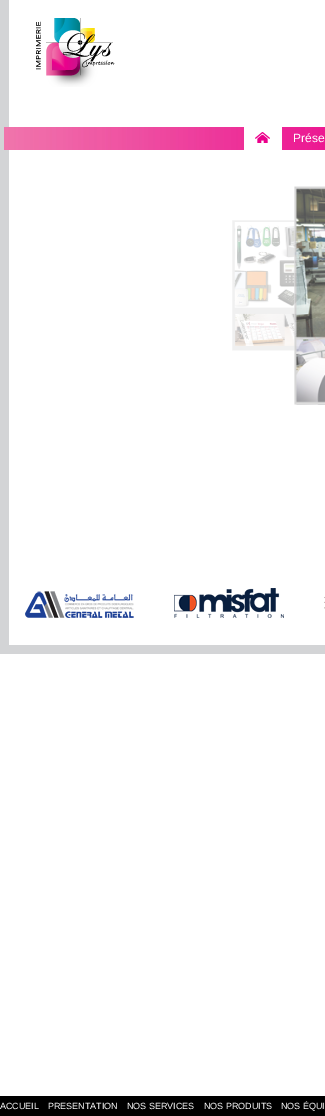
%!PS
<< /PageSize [325 1116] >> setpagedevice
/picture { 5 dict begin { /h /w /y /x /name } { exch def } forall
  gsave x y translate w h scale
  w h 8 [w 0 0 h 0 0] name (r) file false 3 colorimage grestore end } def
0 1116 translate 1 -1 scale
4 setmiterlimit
1 setgray
0 0 325 1116 rectfill
0.827 0.831 0.839 setrgbcolor
9 645 316 9 rectfill
0 0 9 654 rectfill
(img1.rgb) 36 18 79 69 picture
(img2.rgb) 4 127 321 23 picture
1 setgray
244 127 38 23 rectfill
(img3.rgb) 255 132 15 11 picture
/LiberationSans-Regular [12 0 0 -12 0 0] selectfont
293 142 moveto (Prése) show
(img5.rgb) 232 220 93 131 picture
(img4.rgb) 294 186 31 219 picture
(img6.rgb) 25 588 300 30 picture
0 setgray
0 1096 325 20 rectfill
/LiberationSans-Regular [9 0 0 -9 0 0] selectfont
1 setgray
0 1109 moveto (ACCUEIL) show
48 1109 moveto (PRESENTATION) show
127 1109 moveto (NOS SERVICES) show
204 1109 moveto (NOS PRODUITS) show
281 1109 moveto (NOS ÉQUI) show
showpage
